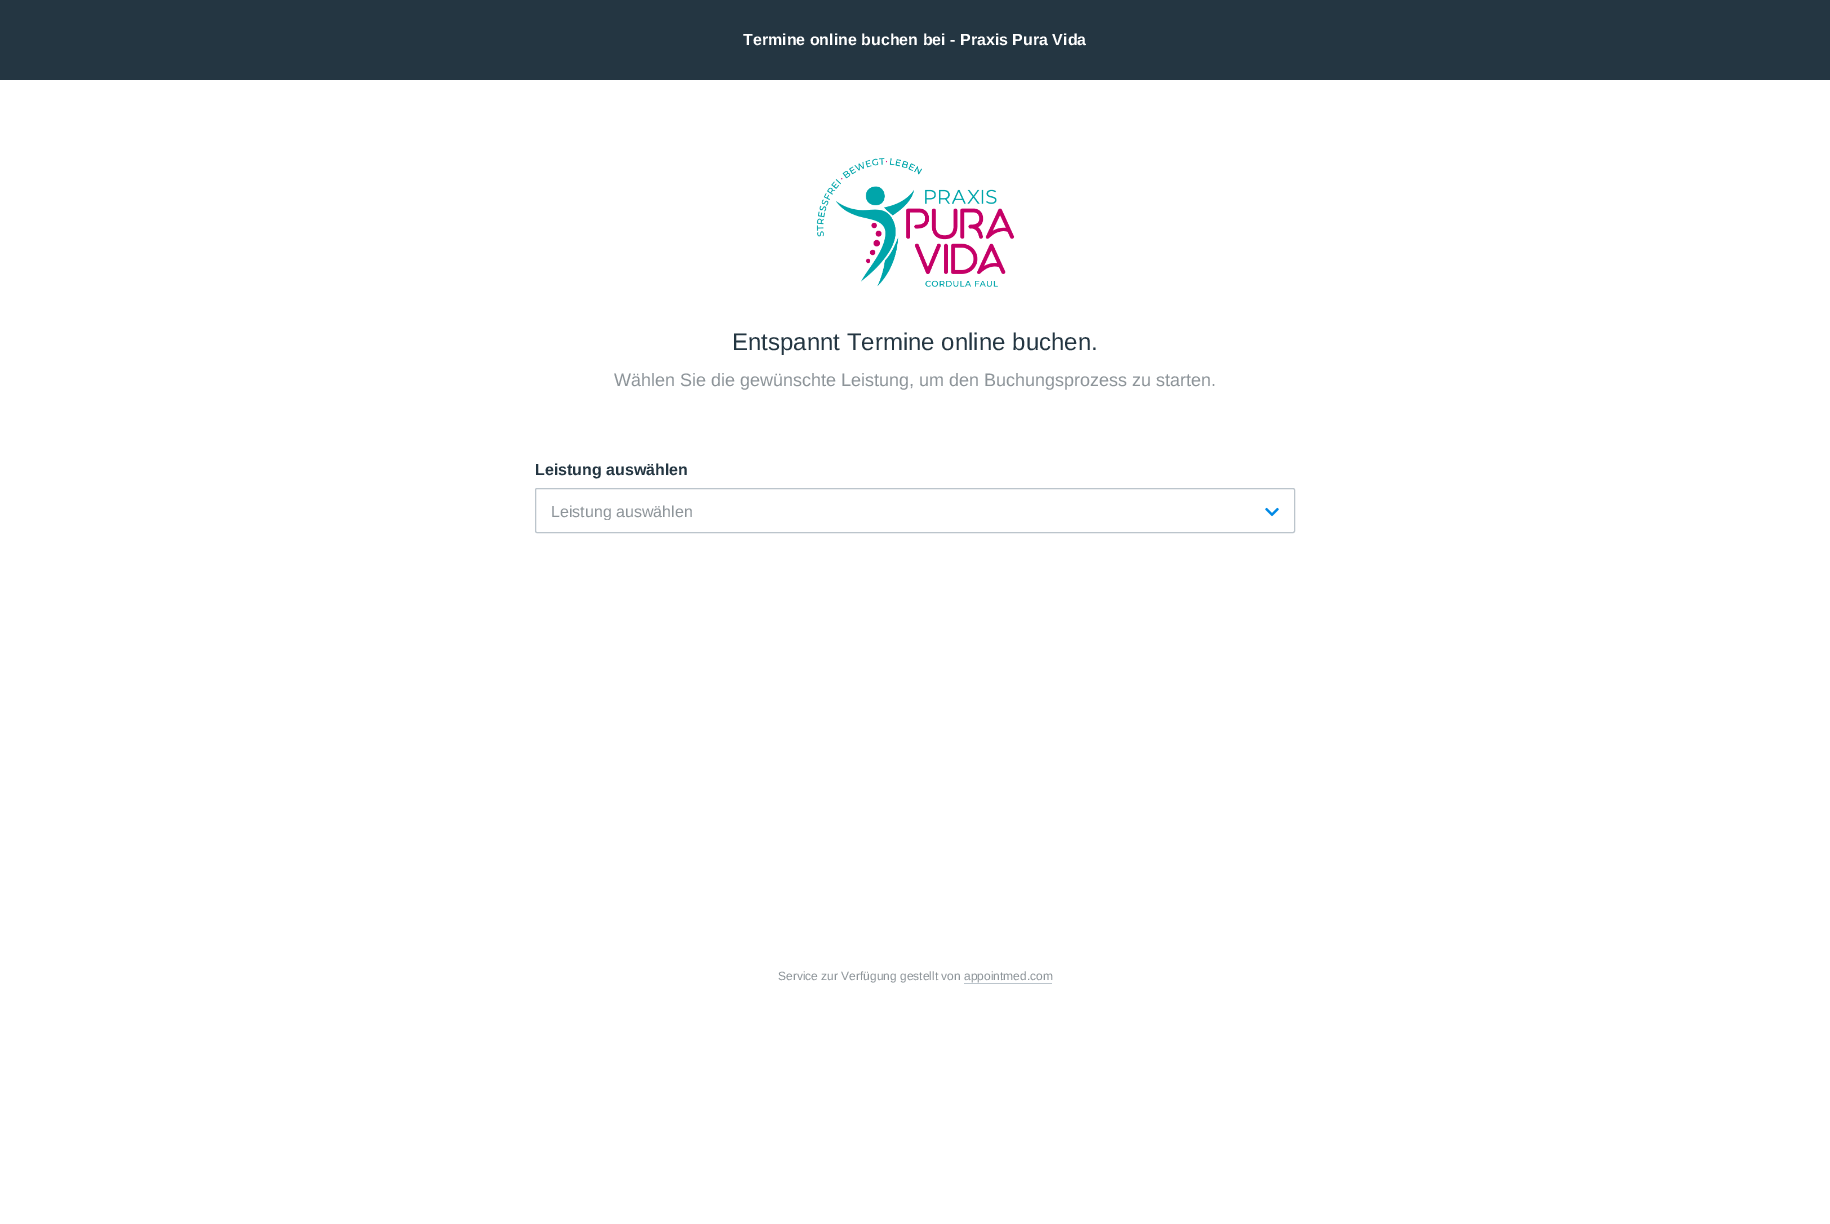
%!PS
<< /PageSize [1830 1224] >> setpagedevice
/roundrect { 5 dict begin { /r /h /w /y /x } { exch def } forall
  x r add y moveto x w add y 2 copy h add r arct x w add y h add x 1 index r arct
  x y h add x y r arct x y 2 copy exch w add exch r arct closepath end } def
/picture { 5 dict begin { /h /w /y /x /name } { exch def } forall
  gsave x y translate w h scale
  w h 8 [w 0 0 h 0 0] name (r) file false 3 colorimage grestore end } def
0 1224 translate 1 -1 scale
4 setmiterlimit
1 setgray
0 0 1830 1224 rectfill
0.141 0.212 0.259 setrgbcolor
0 0 1830 80 rectfill
/LiberationSans-Bold [16 0 0 -16 0 0] selectfont
1 setgray
743 45 moveto (Termine online buchen bei - Praxis Pura Vida) show
(img1.rgb) 816 158 199 129 picture
/LiberationSans-Regular [24 0 0 -24 0 0] selectfont
0.141 0.212 0.259 setrgbcolor
732 350 moveto (Entspannt Termine online buchen.) show
/LiberationSans-Regular [18 0 0 -18 0 0] selectfont
0.553 0.58 0.6 setrgbcolor
614 386 moveto (Wählen Sie die gewünschte Leistung, um den Buchungsprozess zu starten.) show
/LiberationSans-Bold [16 0 0 -16 0 0] selectfont
0.141 0.212 0.259 setrgbcolor
535 475 moveto (Leistung auswählen) show
(img2.rgb) 1265 507 14 10 picture
0.737 0.773 0.8 setrgbcolor
535.5 488.5 759 44 1.5 roundrect stroke
gsave
551 503 728 17 rectclip
/LiberationSans-Regular [16 0 0 -16 0 0] selectfont
0.553 0.58 0.6 setrgbcolor
551 517 moveto (Leistung auswählen) show
grestore
/LiberationSans-Regular [12 0 0 -12 0 0] selectfont
0.553 0.58 0.6 setrgbcolor
778 980 moveto (Service zur Verfügung gestellt von appointmed.com) show
0.737 0.773 0.8 setrgbcolor
964 983 88 1 rectfill
showpage
